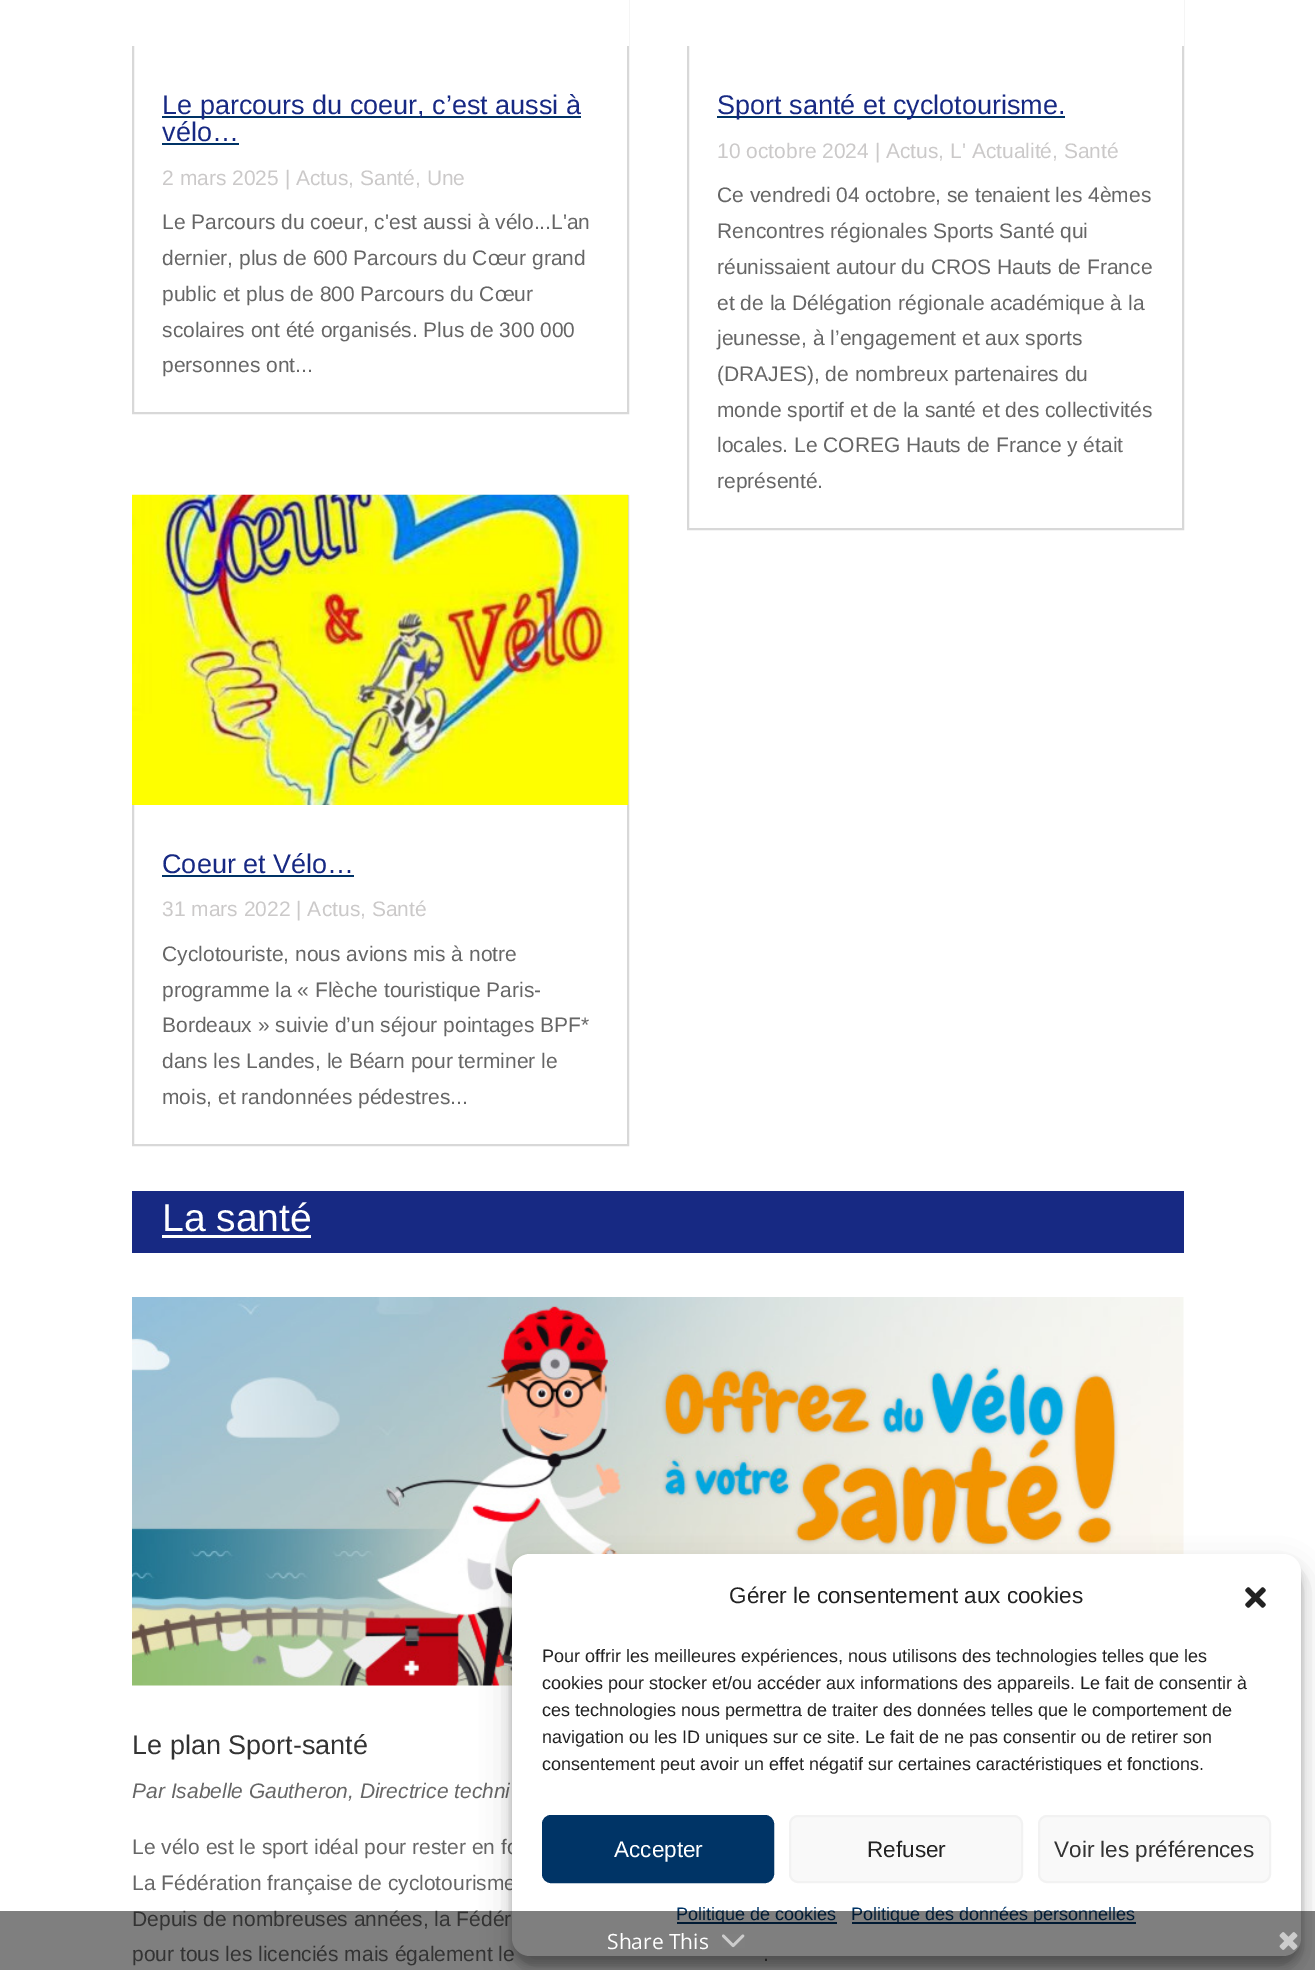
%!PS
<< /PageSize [1315 1970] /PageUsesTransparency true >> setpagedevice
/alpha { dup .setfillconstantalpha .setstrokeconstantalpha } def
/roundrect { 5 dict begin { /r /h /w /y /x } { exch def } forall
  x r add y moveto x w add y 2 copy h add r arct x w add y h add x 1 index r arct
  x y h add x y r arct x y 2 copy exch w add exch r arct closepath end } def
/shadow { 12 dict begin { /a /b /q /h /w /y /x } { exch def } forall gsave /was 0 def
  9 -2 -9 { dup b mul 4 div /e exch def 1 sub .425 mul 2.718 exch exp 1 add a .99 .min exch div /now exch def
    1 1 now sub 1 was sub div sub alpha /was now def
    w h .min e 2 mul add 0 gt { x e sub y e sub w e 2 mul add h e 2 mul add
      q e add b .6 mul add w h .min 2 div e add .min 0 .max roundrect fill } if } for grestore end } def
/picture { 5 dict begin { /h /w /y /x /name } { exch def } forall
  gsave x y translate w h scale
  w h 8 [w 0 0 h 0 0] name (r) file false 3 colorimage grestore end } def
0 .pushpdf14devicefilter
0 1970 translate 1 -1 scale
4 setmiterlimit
1 setgray
0 0 1315 1970 rectfill
0.847 setgray
2 setlinewidth
133 -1 495 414 rectstroke
1 setgray
132 0 497 46 rectfill
0 0.2 0.4 setrgbcolor
162 116 419 2 rectfill
/LiberationSans-Regular [27 0 0 -27 0 0] selectfont
0.09 0.161 0.514 setrgbcolor
162 114 moveto (Le parcours du coeur, c’est aussi à) show
162 141 moveto (vélo…) show
0 0.2 0.4 setrgbcolor
162 143 77 2 rectfill
/LiberationSans-Regular [21 0 0 -21 0 0] selectfont
0.796 0.788 0.788 setrgbcolor
162 185 moveto (2 mars 2025 | Actus, Santé, Une) show
0.4 setgray
162 229 moveto (Le Parcours du coeur, c'est aussi à vélo...L'an) show
162 265 moveto (dernier, plus de 600 Parcours du Cœur grand) show
162 301 moveto (public et plus de 800 Parcours du Cœur) show
162 337 moveto (scolaires ont été organisés. Plus de 300 000) show
162 372 moveto (personnes ont...) show
0.847 setgray
133 496 495 649 rectstroke
(img1.rgb) 132 494 497 311 picture
/LiberationSans-Regular [27 0 0 -27 0 0] selectfont
0.09 0.161 0.514 setrgbcolor
162 873 moveto (Coeur et Vélo…) show
0 0.2 0.4 setrgbcolor
162 875 192 2 rectfill
/LiberationSans-Regular [21 0 0 -21 0 0] selectfont
0.796 0.788 0.788 setrgbcolor
162 916 moveto (31 mars 2022 | Actus, Santé) show
0.4 setgray
162 961 moveto (Cyclotouriste, nous avions mis à notre) show
162 997 moveto (programme la « Flèche touristique Paris-) show
162 1032 moveto (Bordeaux » suivie d’un séjour pointages BPF*) show
162 1068 moveto (dans les Landes, le Béarn pour terminer le) show
162 1104 moveto (mois, et randonnées pédestres...) show
0.847 setgray
688 -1 495 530 rectstroke
1 setgray
687 0 497 46 rectfill
0 0.2 0.4 setrgbcolor
717 116 348 2 rectfill
/LiberationSans-Regular [27 0 0 -27 0 0] selectfont
0.09 0.161 0.514 setrgbcolor
717 114 moveto (Sport santé et cyclotourisme.) show
/LiberationSans-Regular [21 0 0 -21 0 0] selectfont
0.796 0.788 0.788 setrgbcolor
717 158 moveto (10 octobre 2024 | Actus, L' Actualité, Santé) show
0.4 setgray
717 202 moveto (Ce vendredi 04 octobre, se tenaient les 4èmes) show
717 238 moveto (Rencontres régionales Sports Santé qui) show
717 274 moveto (réunissaient autour du CROS Hauts de France) show
717 310 moveto (et de la Délégation régionale académique à la) show
717 345 moveto (jeunesse, à l’engagement et aux sports) show
717 381 moveto (\(DRAJES\), de nombreux partenaires du) show
717 417 moveto (monde sportif et de la santé et des collectivités) show
717 452 moveto (locales. Le COREG Hauts de France y était) show
717 488 moveto (représenté.) show
0.09 0.161 0.514 setrgbcolor
132 1191 1052 62 rectfill
/LiberationSans-Regular [39 0 0 -39 0 0] selectfont
1 setgray
162 1231 moveto (La santé) show
162 1235 149 3 rectfill
(img2.rgb) 132 1297 1052 389 picture
/LiberationSans-Regular [27 0 0 -27 0 0] selectfont
0.2 setgray
132 1754 moveto (Le plan Sport-santé) show
/LiberationSans-Italic [21 0 0 -21 0 0] selectfont
0.4 setgray
132 1798 moveto (Par Isabelle Gautheron, Directrice techni) show
/LiberationSans-Regular [21 0 0 -21 0 0] selectfont
132 1854 moveto (Le vélo est le sport idéal pour rester en fo) show
132 1890 moveto (La Fédération française de cyclotourisme) show
132 1926 moveto (Depuis de nombreuses années, la Fédér) show
132 1961 moveto (pour tous les licenciés mais également le) show
763 1961 moveto (.) show
0 setgray
512 1563 789 402 18 4.5 0.23 shadow
512 1569 789 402 18 15 0.19 shadow
1 setgray
512 1554 789 402 18 roundrect fill
/LiberationSans-Regular [22.5 0 0 -22.5 0 0] selectfont
0.133 setgray
729 1603 moveto (Gérer le consentement aux cookies) show
(img3.rgb) 1245 1587 21 21 picture
/LiberationSans-Regular [18 0 0 -18 0 0] selectfont
542 1662 moveto (Pour offrir les meilleures expériences, nous utilisons des technologies telles que les) show
542 1689 moveto (cookies pour stocker et/ou accéder aux informations des appareils. Le fait de consentir à) show
542 1716 moveto (ces technologies nous permettra de traiter des données telles que le comportement de) show
542 1743 moveto (navigation ou les ID uniques sur ce site. Le fait de ne pas consentir ou de retirer son) show
542 1770 moveto (consentement peut avoir un effet négatif sur certaines caractéristiques et fonctions.) show
0 0.204 0.4 setrgbcolor
543 1816 230 66 8 roundrect gsave fill grestore
stroke
/LiberationSans-Regular [22.5 0 0 -22.5 0 0] selectfont
1 setgray
614 1857 moveto (Accepter) show
0.976 setgray
790 1816 232 66 8 roundrect gsave fill grestore
0.949 setgray
stroke
0.133 setgray
867 1857 moveto (Refuser) show
0.976 setgray
1039 1816 231 66 8 roundrect gsave fill grestore
0.949 setgray
stroke
0.2 setgray
1054 1857 moveto (Voir les préférences) show
0 0.204 0.4 setrgbcolor
677 1922 160 2 rectfill
/LiberationSans-Regular [18 0 0 -18 0 0] selectfont
676 1920 moveto (Politique de cookies) show
852 1922 284 2 rectfill
851 1920 moveto (Politique des données personnelles) show
0.5 alpha
0 setgray
0 1911 1315 59 rectfill
/OpenSans-Regular [21 0 0 -21 0 0] selectfont
1 alpha
1 setgray
607 1949 moveto (Share This) show
(img4.rgb) 722 1934 23 14 picture
(img5.rgb) 1279 1932 19 18 picture
.poppdf14devicefilter showpage
